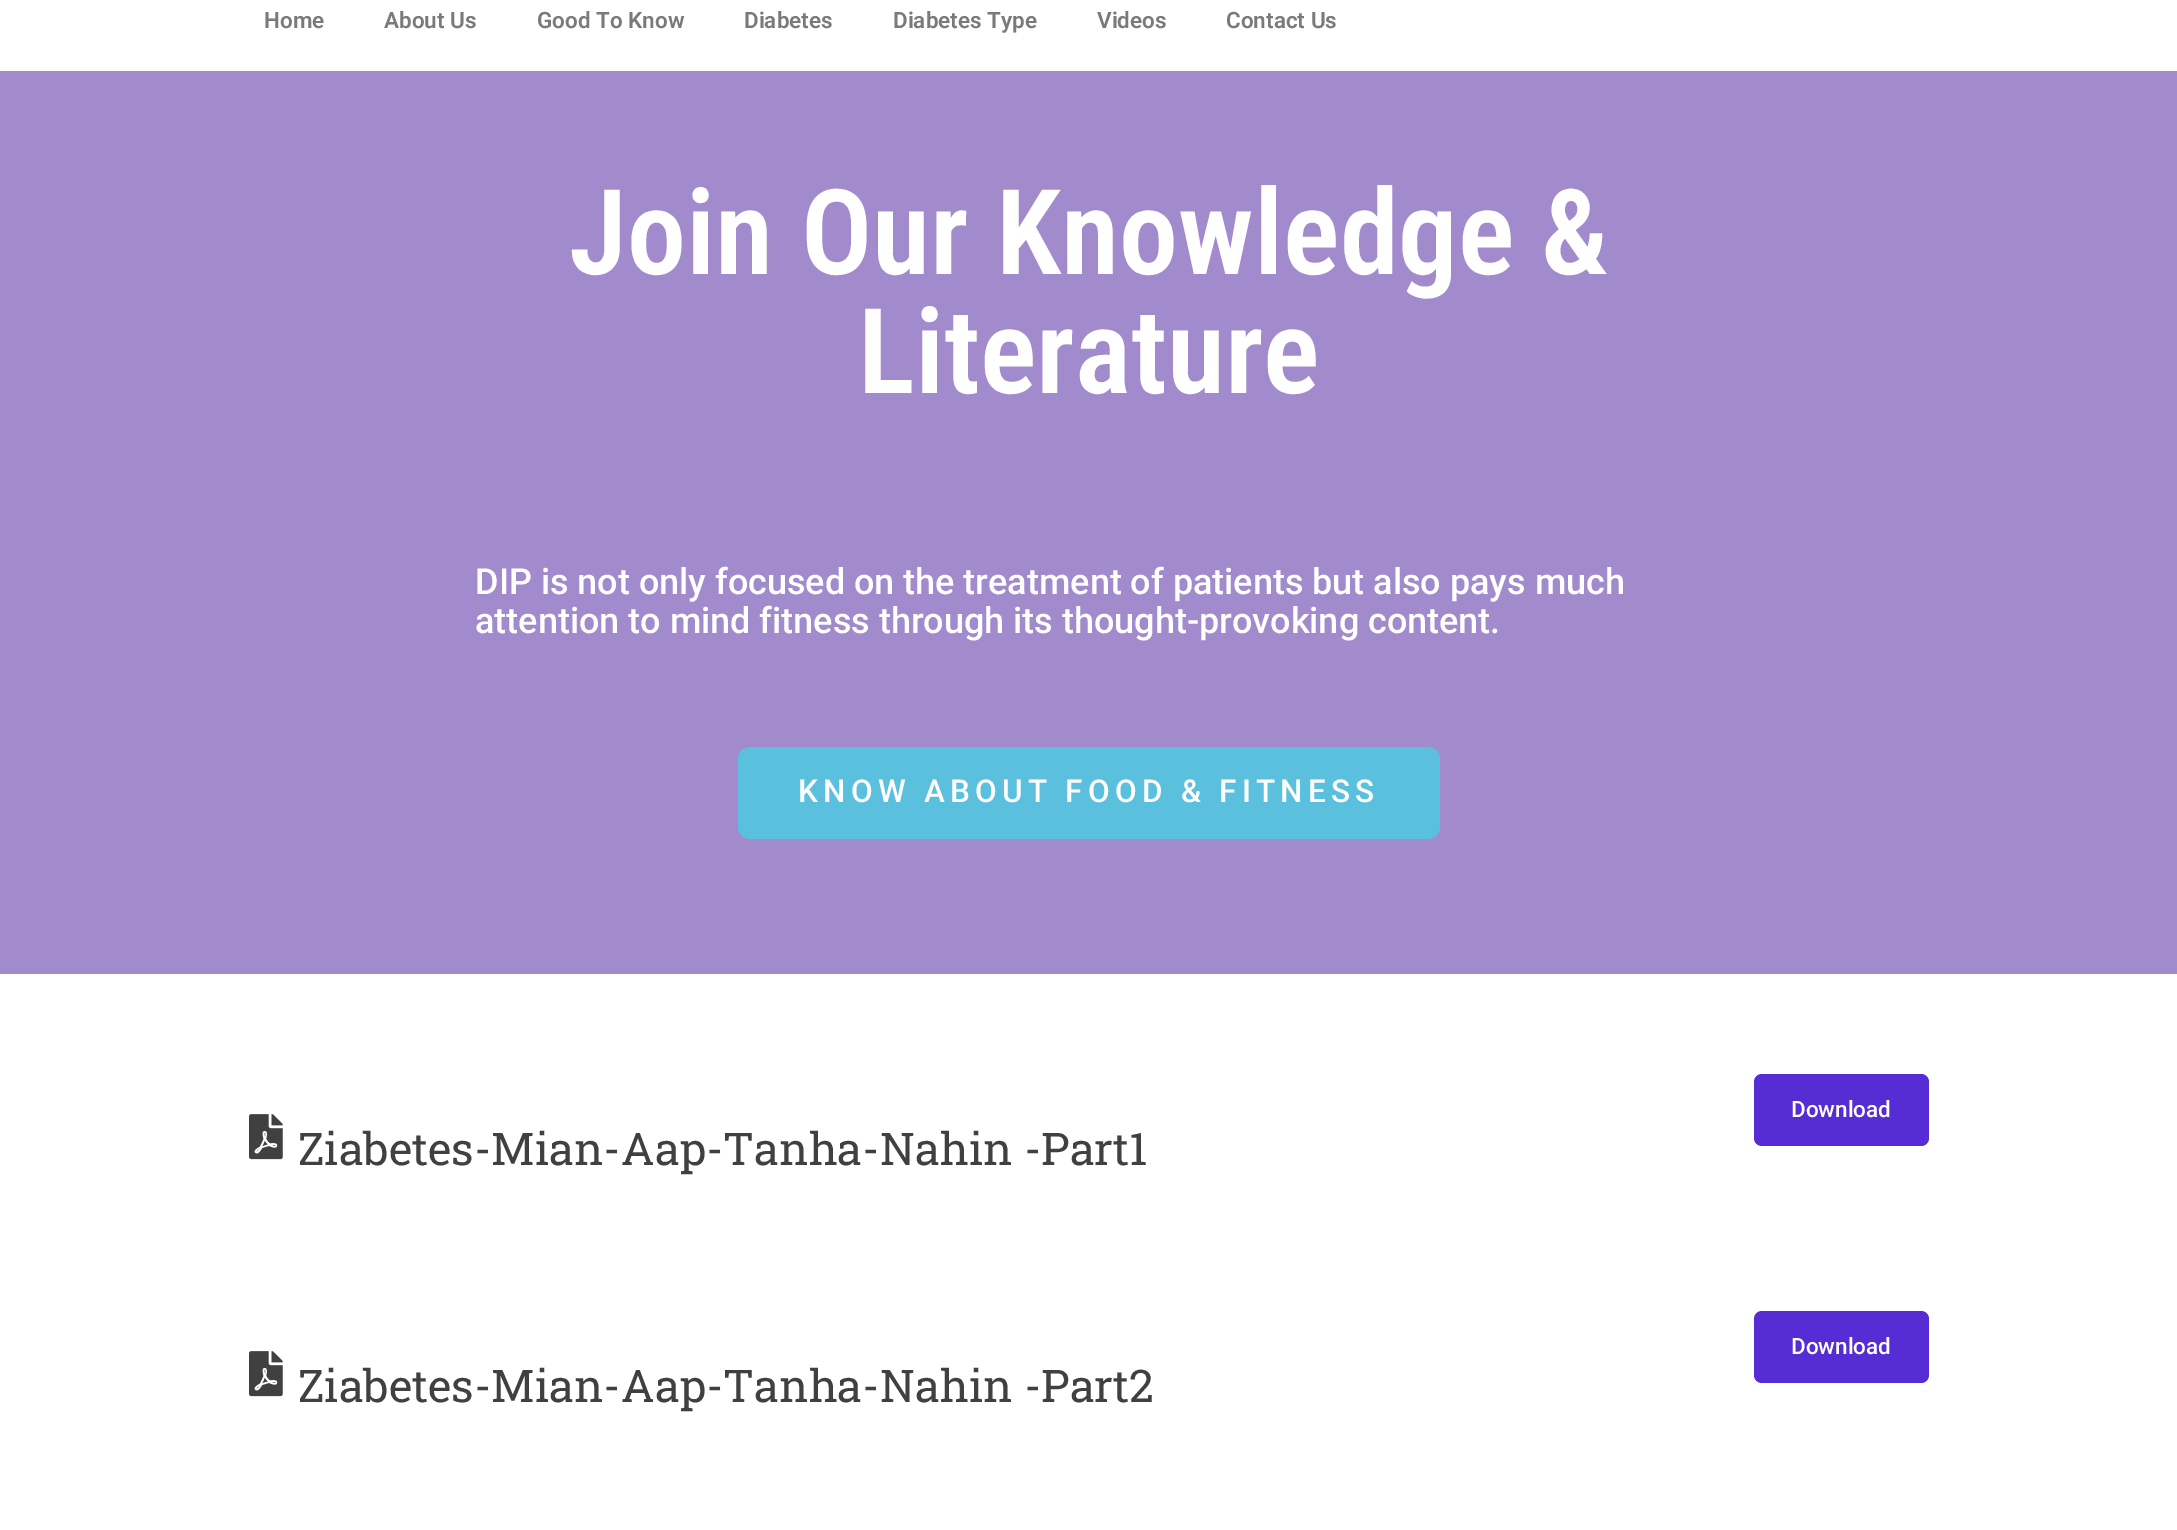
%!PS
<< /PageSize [2177 1530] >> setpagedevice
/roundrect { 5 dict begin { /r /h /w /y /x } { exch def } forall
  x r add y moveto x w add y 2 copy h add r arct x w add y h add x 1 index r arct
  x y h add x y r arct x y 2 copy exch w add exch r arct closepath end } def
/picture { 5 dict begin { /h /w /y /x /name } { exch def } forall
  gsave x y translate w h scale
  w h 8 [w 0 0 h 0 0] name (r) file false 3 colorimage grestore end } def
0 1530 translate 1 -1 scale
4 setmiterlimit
1 setgray
0 0 2177 1530 rectfill
/Roboto-SemiBold [22.5 0 0 -22.5 0 0] selectfont
0.478 setgray
264 28 moveto (Home) show
384 28 moveto (About Us) show
537 28 moveto (Good To Know) show
744 28 moveto (Diabetes) show
893 28 moveto (Diabetes Type) show
1097 28 moveto (Videos) show
1226 28 moveto (Contact Us) show
0.635 0.545 0.804 setrgbcolor
0 71 2177 903 rectfill
/RobotoCondensed-SemiBold [118.5 0 0 -118.5 0 0] selectfont
1 setgray
569 274 moveto (Join Our Knowledge &) show
858 393 moveto (Literature) show
/Roboto-Medium [36 0 0 -36 0 0] selectfont
475 594 moveto (DIP is not only focused on the treatment of patients but also pays much) show
475 633 moveto (attention to mind fitness through its thought-provoking content.) show
0.357 0.753 0.871 setrgbcolor
738 747 702 92 12 roundrect fill
/Roboto-Medium [31.5 0 0 -31.5 0 0] selectfont
1 setgray
798 802 moveto 5.25 0 (KNOW ABOUT FOOD & FITNESS) ashow
0.337 0.176 0.831 setrgbcolor
1754 1074 175 72 8 roundrect fill
/Roboto-Medium [22.5 0 0 -22.5 0 0] selectfont
1 setgray
1791 1117 moveto (Download) show
(img1.rgb) 249 1114 34 46 picture
/RobotoSlab-Regular [45 0 0 -45 0 0] selectfont
0.251 setgray
298 1165 moveto (Ziabetes-Mian-Aap-Tanha-Nahin -Part1) show
0.337 0.176 0.831 setrgbcolor
1754 1311 175 72 8 roundrect fill
/Roboto-Medium [22.5 0 0 -22.5 0 0] selectfont
1 setgray
1791 1354 moveto (Download) show
(img1.rgb) 249 1351 34 46 picture
/RobotoSlab-Regular [45 0 0 -45 0 0] selectfont
0.251 setgray
298 1402 moveto (Ziabetes-Mian-Aap-Tanha-Nahin -Part2) show
showpage
